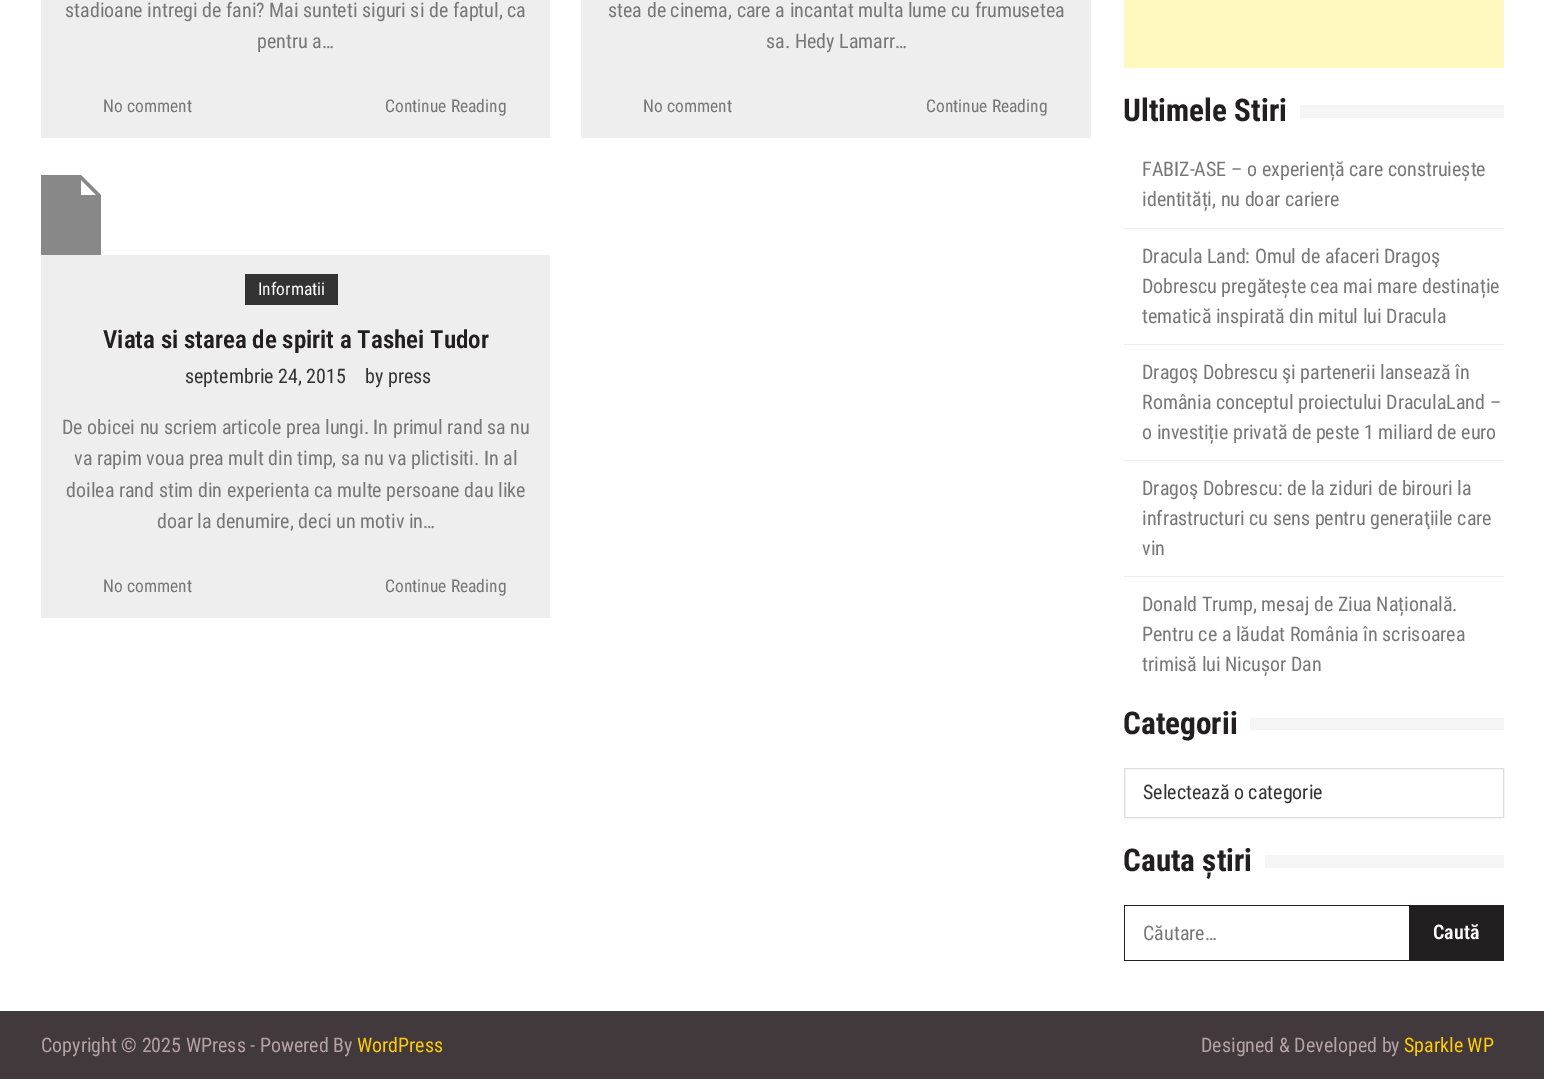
%!PS
<< /PageSize [1544 1079] >> setpagedevice
0 1079 translate 1 -1 scale
4 setmiterlimit
1 setgray
0 0 1544 1079 rectfill
0.933 setgray
41 0 509 138 rectfill
/RobotoCondensed-Regular [20 0 0 -20 0 0] selectfont
0.467 setgray
65 17 moveto (stadioane intregi de fani? Mai sunteti siguri si de faptul, ca) show
257 48 moveto (pentru a…) show
/RobotoCondensed-Regular [17.5 0 0 -17.5 0 0] selectfont
103 112 moveto (No comment) show
385 112 moveto (Continue Reading) show
0.933 setgray
581 0 510 138 rectfill
/RobotoCondensed-Regular [20 0 0 -20 0 0] selectfont
0.467 setgray
608 17 moveto (stea de cinema, care a incantat multa lume cu frumusetea) show
766 48 moveto (sa. Hedy Lamarr…) show
/RobotoCondensed-Regular [17.5 0 0 -17.5 0 0] selectfont
643 112 moveto (No comment) show
926 112 moveto (Continue Reading) show
0.533 setgray
newpath 81 175 moveto 41 175 lineto 41 255 lineto 101 255 lineto 101 195 lineto closepath 81 195 moveto 81 180 lineto 96 195 lineto closepath fill
0.933 setgray
41 255 509 363 rectfill
0.2 setgray
245 274 93 31 rectfill
1 setgray
258 295 moveto (Informatii) show
/RobotoCondensed-SemiBold [25 0 0 -25 0 0] selectfont
0.137 0.122 0.125 setrgbcolor
103 348 moveto (Viata si starea de spirit a Tashei Tudor) show
/RobotoCondensed-Regular [20 0 0 -20 0 0] selectfont
0.2 setgray
185 383 moveto (septembrie 24, 2015) show
365 383 moveto (by press) show
0.467 setgray
62 434 moveto (De obicei nu scriem articole prea lungi. In primul rand sa nu) show
74 465 moveto (va rapim voua prea mult din timp, sa nu va plictisiti. In al) show
66 497 moveto (doilea rand stim din experienta ca multe persoane dau like) show
157 528 moveto (doar la denumire, deci un motiv in…) show
/RobotoCondensed-Regular [17.5 0 0 -17.5 0 0] selectfont
103 592 moveto (No comment) show
385 592 moveto (Continue Reading) show
1 0.976 0.753 setrgbcolor
1124 0 380 68 rectfill
/RobotoCondensed-Bold [31.25 0 0 -31.25 0 0] selectfont
0.137 0.122 0.125 setrgbcolor
1123 121 moveto (Ultimele Stiri) show
0.961 setgray
1300 105 204 13 rectfill
0.933 setgray
1124 228 380 1 rectfill
/RobotoCondensed-Regular [20 0 0 -20 0 0] selectfont
0.467 setgray
1142 176 moveto (FABIZ-ASE – o experiență care construiește) show
1142 206 moveto (identități, nu doar cariere) show
0.933 setgray
1124 344 380 1 rectfill
0.467 setgray
1142 263 moveto (Dracula Land: Omul de afaceri Dragoş) show
1142 293 moveto (Dobrescu pregătește cea mai mare destinație) show
1142 323 moveto (tematică inspirată din mitul lui Dracula) show
0.933 setgray
1124 460 380 1 rectfill
0.467 setgray
1142 379 moveto (Dragoş Dobrescu şi partenerii lansează în) show
1142 409 moveto (România conceptul proiectului DraculaLand –) show
1142 439 moveto (o investiție privată de peste 1 miliard de euro) show
0.933 setgray
1124 576 380 1 rectfill
0.467 setgray
1142 495 moveto (Dragoş Dobrescu: de la ziduri de birouri la) show
1142 525 moveto (infrastructuri cu sens pentru generaţiile care) show
1142 555 moveto (vin) show
1142 611 moveto (Donald Trump, mesaj de Ziua Națională.) show
1142 641 moveto (Pentru ce a lăudat România în scrisoarea) show
1142 671 moveto (trimisă lui Nicușor Dan) show
/RobotoCondensed-Bold [31.25 0 0 -31.25 0 0] selectfont
0.137 0.122 0.125 setrgbcolor
1123 734 moveto (Categorii) show
0.961 setgray
1250 718 254 12 rectfill
0.867 setgray
1124.5 768.5 379 49 rectstroke
/RobotoCondensed-Regular [20 0 0 -20 0 0] selectfont
0.2 setgray
1143 799 moveto (Selectează o categorie) show
/RobotoCondensed-Bold [31.25 0 0 -31.25 0 0] selectfont
0.137 0.122 0.125 setrgbcolor
1123 871 moveto (Cauta știri) show
0.961 setgray
1265 855 239 13 rectfill
0.137 0.122 0.125 setrgbcolor
1124 905 285 1 rectfill
1124 960 285 1 rectfill
1124 905 1 56 rectfill
/RobotoCondensed-Regular [20 0 0 -20 0 0] selectfont
0.467 setgray
1143 940 moveto (Căutare…) show
0.137 0.122 0.125 setrgbcolor
1409 905 95 56 rectfill
/RobotoCondensed-SemiBold [20 0 0 -20 0 0] selectfont
1 setgray
1433 939 moveto (Caută) show
0.255 0.224 0.231 setrgbcolor
0 1011 1544 68 rectfill
/RobotoCondensed-Regular [20 0 0 -20 0 0] selectfont
0.71 0.635 0.655 setrgbcolor
41 1052 moveto (Copyright © 2025 WPress - Powered By) show
1 0.796 0.031 setrgbcolor
357 1052 moveto (WordPress) show
0.71 0.635 0.655 setrgbcolor
1201 1052 moveto (Designed & Developed by) show
1 0.796 0.031 setrgbcolor
1404 1052 moveto (Sparkle WP) show
showpage
